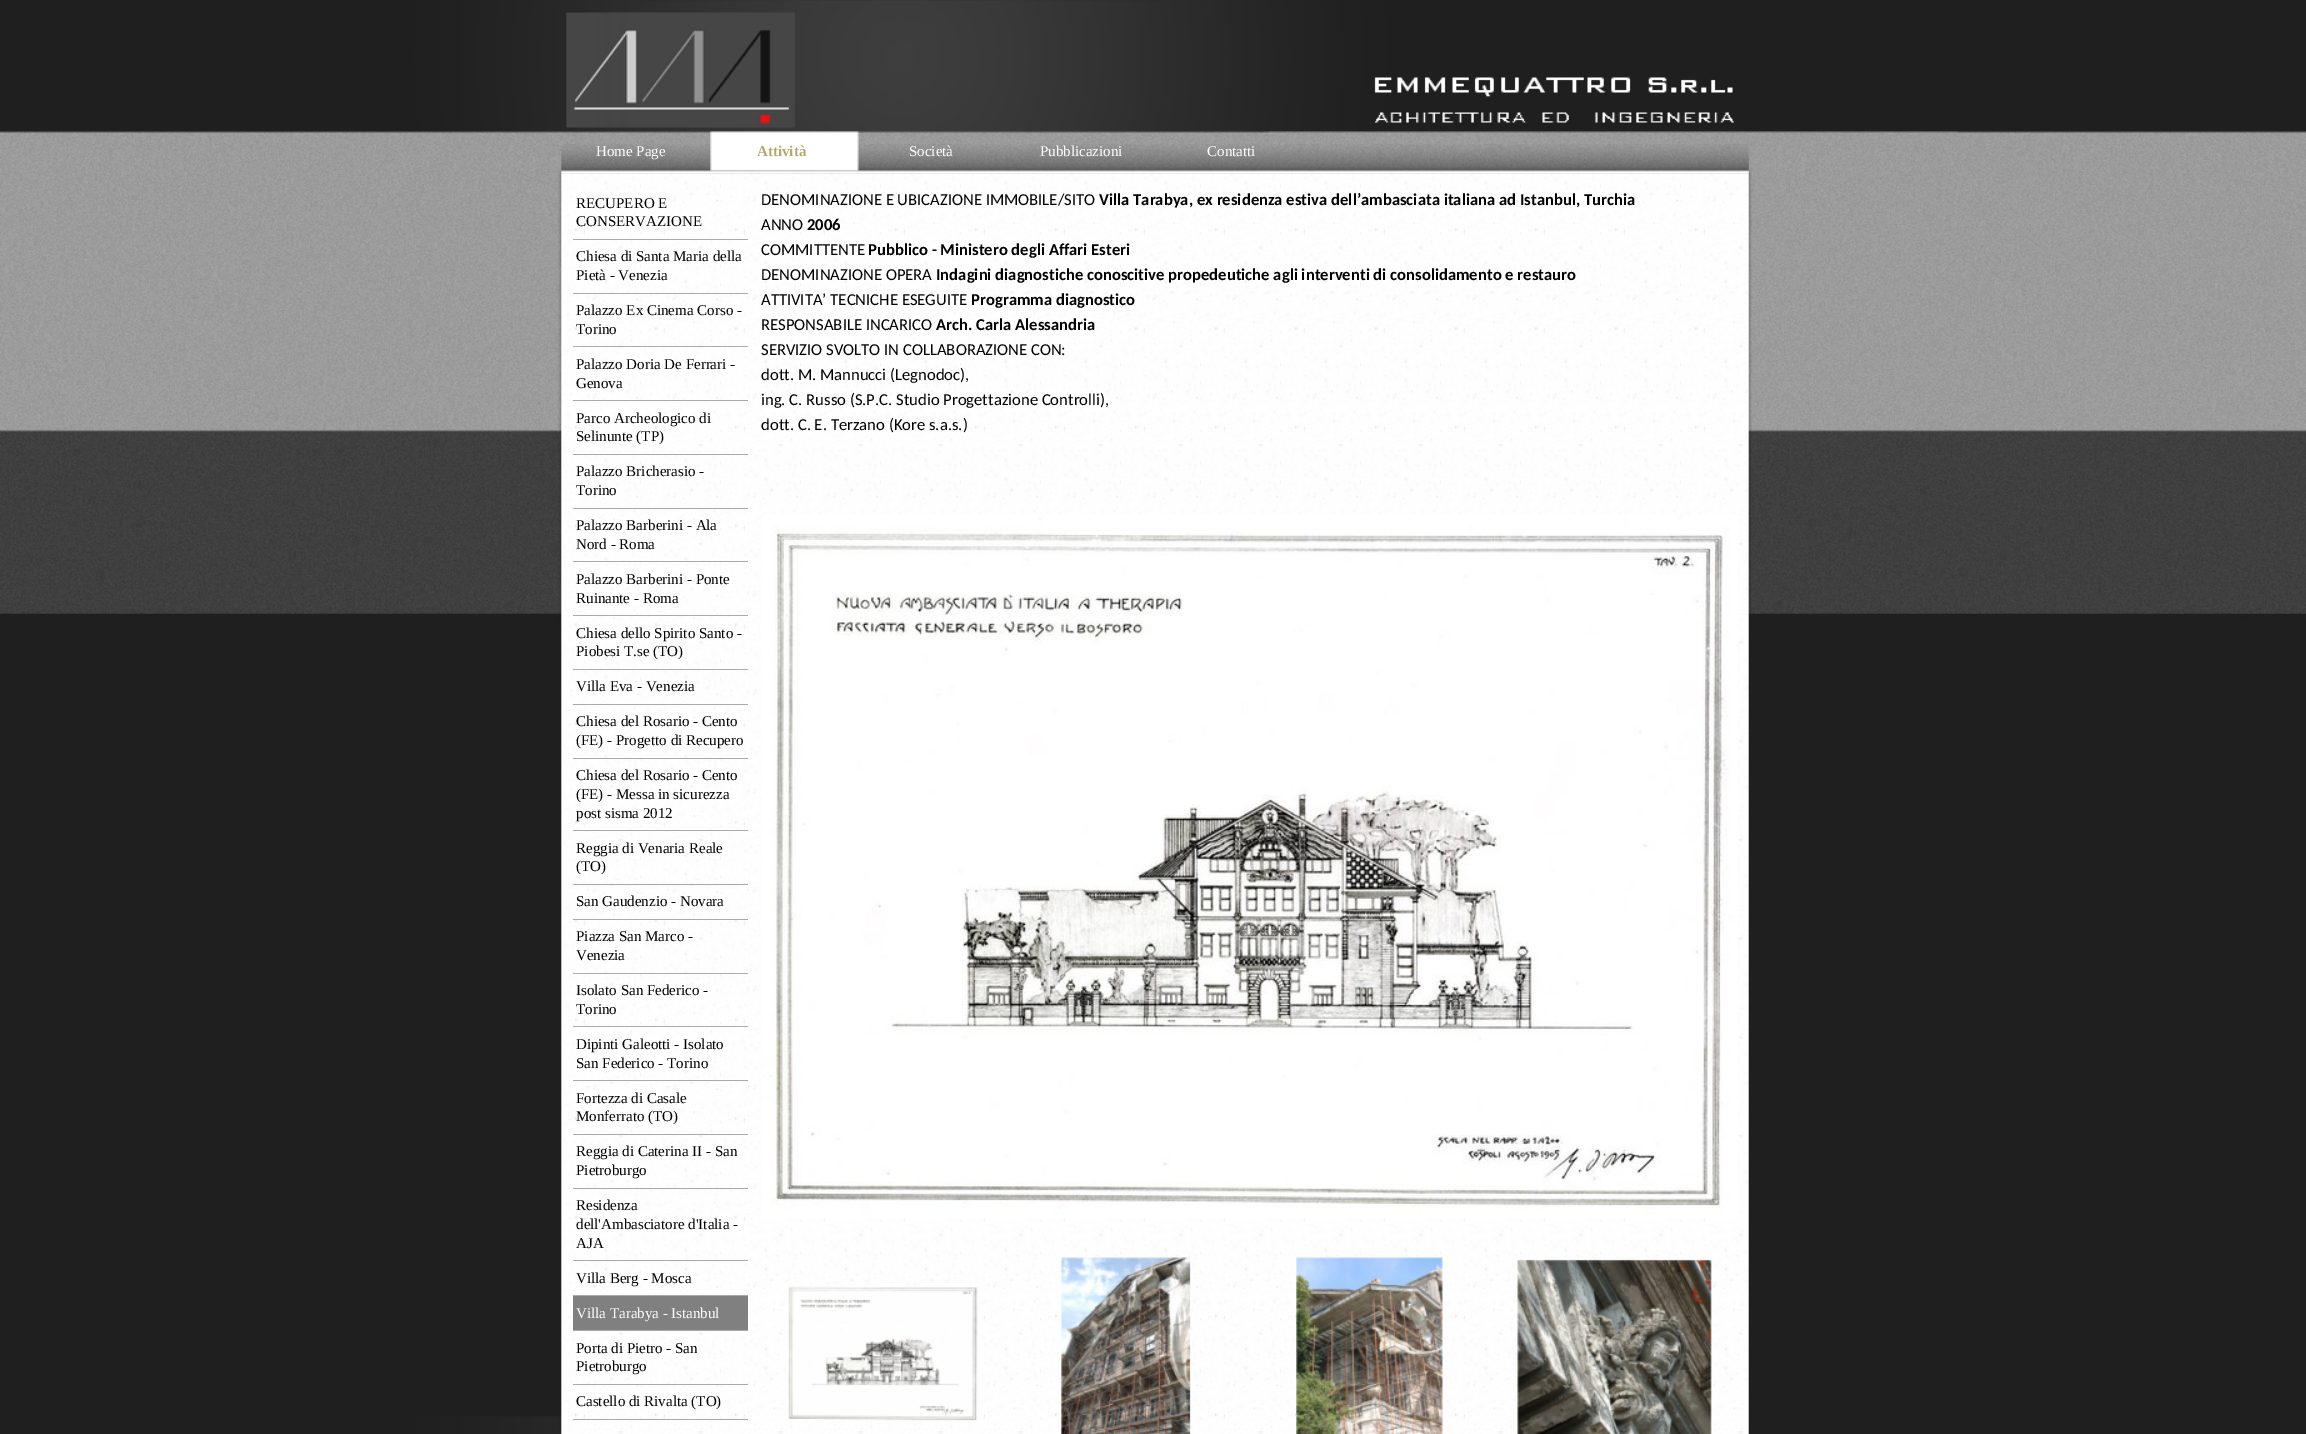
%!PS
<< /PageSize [2306 1434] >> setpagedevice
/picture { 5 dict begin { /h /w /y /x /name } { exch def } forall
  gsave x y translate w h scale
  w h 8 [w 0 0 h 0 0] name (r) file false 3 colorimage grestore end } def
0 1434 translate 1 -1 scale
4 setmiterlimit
1 setgray
0 0 2306 1434 rectfill
(img1.rgb) 0 0 2306 1434 picture
(img2.rgb) 566 12 1168 116 picture
(img5.rgb) 558 173 1194 1261 picture
(img3.rgb) 558 144 1194 30 picture
/LiberationSerif-Regular [15 0 0 -15 0 0] selectfont
596 156 moveto (Home Page) show
(img4.rgb) 710 131 149 41 picture
/LiberationSerif-Bold [15 0 0 -15 0 0] selectfont
0.698 0.667 0.42 setrgbcolor
757 156 moveto (Attività) show
/LiberationSerif-Regular [15 0 0 -15 0 0] selectfont
1 setgray
909 156 moveto (Società) show
1040 156 moveto (Pubblicazioni) show
1207 156 moveto (Contatti) show
0.663 setgray
573 239 175 1 rectfill
0 setgray
576 208 moveto (RECUPERO E) show
576 226 moveto (CONSERVAZIONE) show
0.663 setgray
573 293 175 1 rectfill
0 setgray
576 261 moveto (Chiesa di Santa Maria della) show
576 280 moveto (Pietà - Venezia) show
0.663 setgray
573 346 175 1 rectfill
0 setgray
576 315 moveto (Palazzo Ex Cinema Corso -) show
576 334 moveto (Torino) show
0.663 setgray
573 400 175 1 rectfill
0 setgray
576 369 moveto (Palazzo Doria De Ferrari -) show
576 388 moveto (Genova) show
0.663 setgray
573 454 175 1 rectfill
0 setgray
576 423 moveto (Parco Archeologico di) show
576 441 moveto (Selinunte \(TP\)) show
0.663 setgray
573 508 175 1 rectfill
0 setgray
576 476 moveto (Palazzo Bricherasio -) show
576 495 moveto (Torino) show
0.663 setgray
573 561 175 1 rectfill
0 setgray
576 530 moveto (Palazzo Barberini - Ala) show
576 549 moveto (Nord - Roma) show
0.663 setgray
573 615 175 1 rectfill
0 setgray
576 584 moveto (Palazzo Barberini - Ponte) show
576 603 moveto (Ruinante - Roma) show
0.663 setgray
573 669 175 1 rectfill
0 setgray
576 638 moveto (Chiesa dello Spirito Santo -) show
576 656 moveto (Piobesi T.se \(TO\)) show
0.663 setgray
573 704 175 1 rectfill
0 setgray
576 691 moveto (Villa Eva - Venezia) show
0.663 setgray
573 758 175 1 rectfill
0 setgray
576 726 moveto (Chiesa del Rosario - Cento) show
576 745 moveto (\(FE\) - Progetto di Recupero) show
0.663 setgray
573 830 175 1 rectfill
0 setgray
576 780 moveto (Chiesa del Rosario - Cento) show
576 799 moveto (\(FE\) - Messa in sicurezza) show
576 818 moveto (post sisma 2012) show
0.663 setgray
573 884 175 1 rectfill
0 setgray
576 853 moveto (Reggia di Venaria Reale) show
576 871 moveto (\(TO\)) show
0.663 setgray
573 919 175 1 rectfill
0 setgray
576 906 moveto (San Gaudenzio - Novara) show
0.663 setgray
573 973 175 1 rectfill
0 setgray
576 941 moveto (Piazza San Marco -) show
576 960 moveto (Venezia) show
0.663 setgray
573 1026 175 1 rectfill
0 setgray
576 995 moveto (Isolato San Federico -) show
576 1014 moveto (Torino) show
0.663 setgray
573 1080 175 1 rectfill
0 setgray
576 1049 moveto (Dipinti Galeotti - Isolato) show
576 1068 moveto (San Federico - Torino) show
0.663 setgray
573 1134 175 1 rectfill
0 setgray
576 1103 moveto (Fortezza di Casale) show
576 1121 moveto (Monferrato \(TO\)) show
0.663 setgray
573 1188 175 1 rectfill
0 setgray
576 1156 moveto (Reggia di Caterina II - San) show
576 1175 moveto (Pietroburgo) show
0.663 setgray
573 1260 175 1 rectfill
0 setgray
576 1210 moveto (Residenza) show
576 1229 moveto (dell'Ambasciatore d'Italia -) show
576 1248 moveto (AJA) show
0.663 setgray
573 1295 175 1 rectfill
0 setgray
576 1283 moveto (Villa Berg - Mosca) show
0.502 setgray
573 1296 175 34 rectfill
0.663 setgray
573 1330 175 1 rectfill
1 setgray
576 1318 moveto (Villa Tarabya - Istanbul) show
0.663 setgray
573 1384 175 1 rectfill
0 setgray
576 1353 moveto (Porta di Pietro - San) show
576 1371 moveto (Pietroburgo) show
0.663 setgray
573 1419 175 1 rectfill
0 setgray
576 1406 moveto (Castello di Rivalta \(TO\)) show
/Carlito-Regular [16.65 0 0 -16.65 0 0] selectfont
761 205 moveto (DENOMINAZIONE E UBICAZIONE IMMOBILE/SITO) show
/Carlito-Bold [16.65 0 0 -16.65 0 0] selectfont
1099 205 moveto (Villa Tarabya, ex residenza estiva dell’ambasciata italiana ad Istanbul, Turchia) show
/Carlito-Regular [16.65 0 0 -16.65 0 0] selectfont
761 230 moveto (ANNO) show
/Carlito-Bold [16.65 0 0 -16.65 0 0] selectfont
807 230 moveto (2006) show
/Carlito-Regular [16.65 0 0 -16.65 0 0] selectfont
761 255 moveto (COMMITTENTE) show
/Carlito-Bold [16.65 0 0 -16.65 0 0] selectfont
868 255 moveto (Pubblico - Ministero degli Affari Esteri) show
/Carlito-Regular [16.65 0 0 -16.65 0 0] selectfont
761 280 moveto (DENOMINAZIONE OPERA) show
/Carlito-Bold [16.65 0 0 -16.65 0 0] selectfont
936 280 moveto (Indagini diagnostiche conoscitive propedeutiche agli interventi di consolidamento e restauro) show
/Carlito-Regular [16.65 0 0 -16.65 0 0] selectfont
761 305 moveto (ATTIVITA’ TECNICHE ESEGUITE) show
/Carlito-Bold [16.65 0 0 -16.65 0 0] selectfont
971 305 moveto (Programma diagnostico) show
/Carlito-Regular [16.65 0 0 -16.65 0 0] selectfont
761 330 moveto (RESPONSABILE INCARICO) show
/Carlito-Bold [16.65 0 0 -16.65 0 0] selectfont
936 330 moveto (Arch. Carla Alessandria) show
/Carlito-Regular [16.65 0 0 -16.65 0 0] selectfont
761 355 moveto (SERVIZIO SVOLTO IN COLLABORAZIONE CON:) show
761 380 moveto (dott. M. Mannucci \(Legnodoc\),) show
761 405 moveto (ing. C. Russo \(S.P.C. Studio Progettazione Controlli\),) show
761 430 moveto (dott. C. E. Terzano \(Kore s.a.s.\)) show
(img6.rgb) 762 515 976 704 picture
(img7.rgb) 786 1284 194 137 picture
(img8.rgb) 1061 1257 130 177 picture
(img9.rgb) 1296 1257 147 177 picture
(img10.rgb) 1517 1259 195 175 picture
showpage
